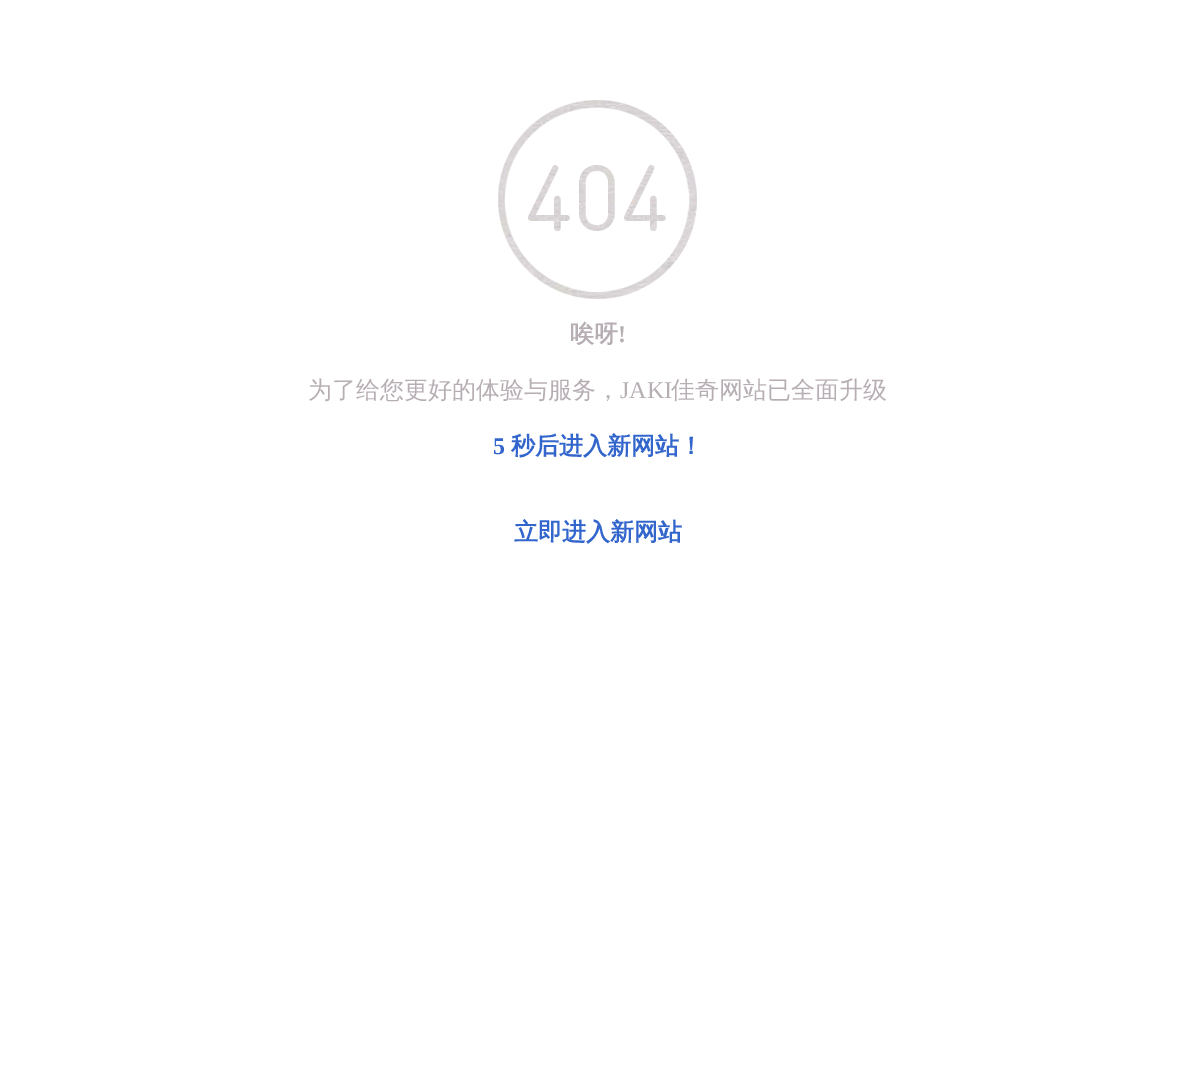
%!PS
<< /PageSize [1195 1091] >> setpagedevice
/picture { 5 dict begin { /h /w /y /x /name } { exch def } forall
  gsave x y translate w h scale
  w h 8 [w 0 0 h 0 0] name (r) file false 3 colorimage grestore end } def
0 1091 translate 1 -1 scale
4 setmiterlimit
1 setgray
0 0 1195 1091 rectfill
(img1.rgb) 498 100 199 199 picture
/WenQuanYiZenHei-Bold [24 0 0 -24 0 0] selectfont
0.718 0.682 0.706 setrgbcolor
570 342 moveto (唉呀) show
/LiberationSerif-Bold [24 0 0 -24 0 0] selectfont
618 342 moveto (!) show
/WenQuanYiZenHei-Medium [24 0 0 -24 0 0] selectfont
308 398 moveto (为了给您更好的体验与服务，) show
/LiberationSerif-Regular [24 0 0 -24 0 0] selectfont
620 398 moveto (JAKI) show
/WenQuanYiZenHei-Medium [24 0 0 -24 0 0] selectfont
671 398 moveto (佳奇网站已全面升级) show
/LiberationSerif-Bold [24 0 0 -24 0 0] selectfont
0.2 0.4 0.8 setrgbcolor
493 454 moveto (5) show
/WenQuanYiZenHei-Bold [24 0 0 -24 0 0] selectfont
511 454 moveto (秒后进入新网站！) show
514 540 moveto (立即进入新网站) show
showpage
